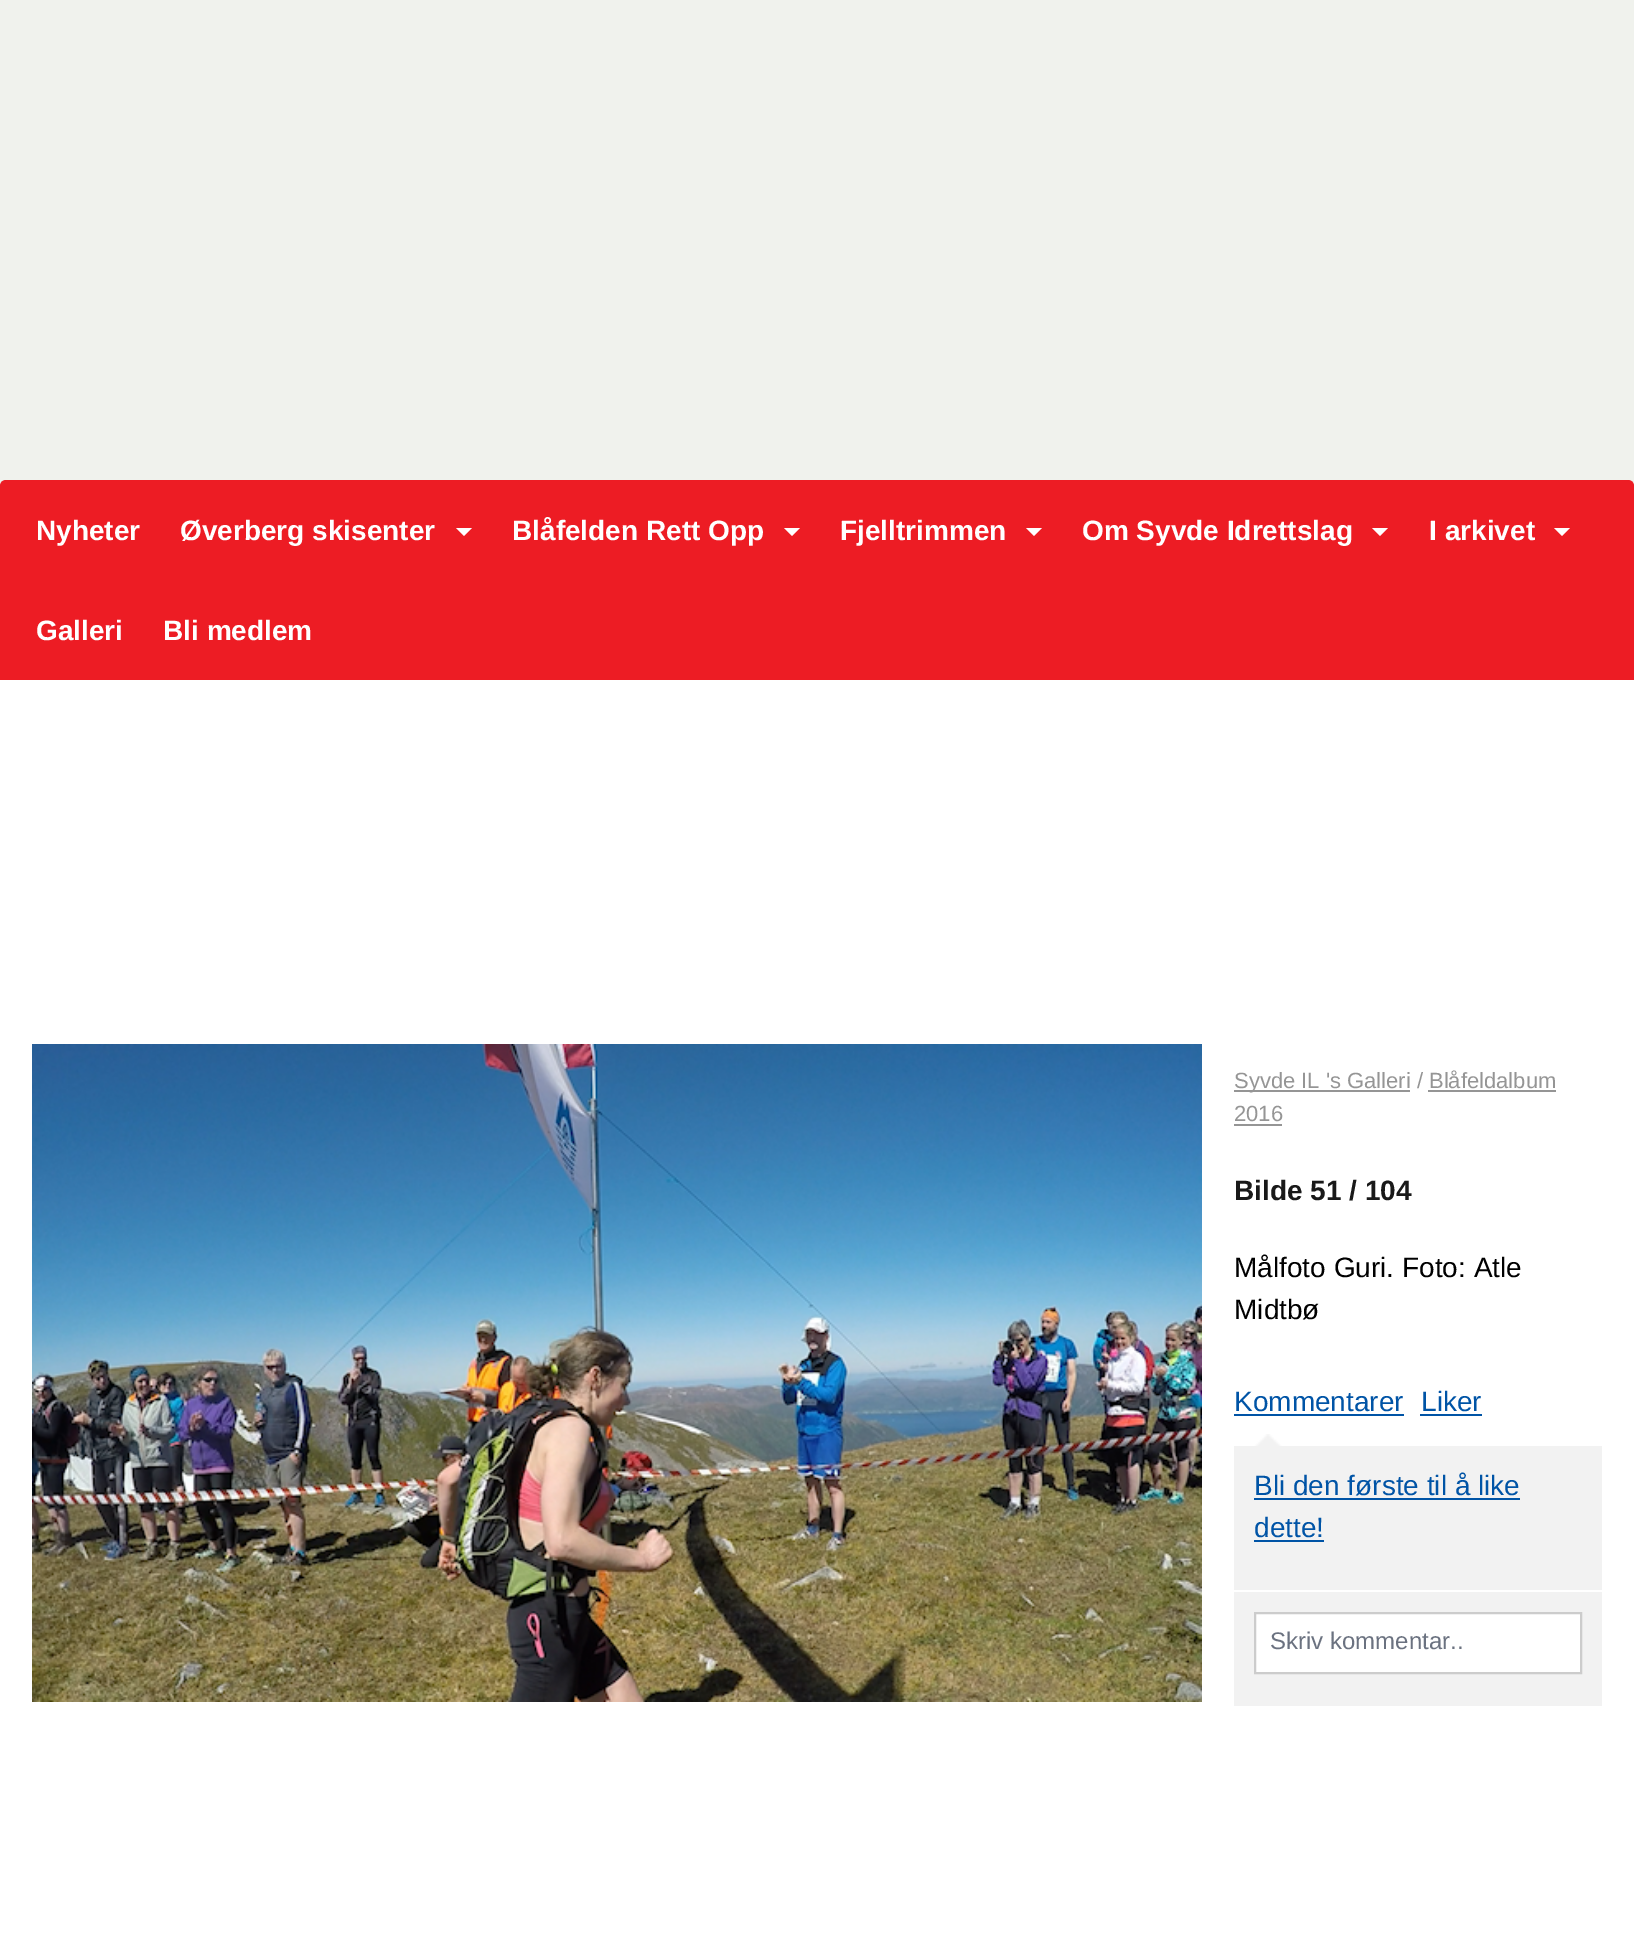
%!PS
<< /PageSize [1634 1937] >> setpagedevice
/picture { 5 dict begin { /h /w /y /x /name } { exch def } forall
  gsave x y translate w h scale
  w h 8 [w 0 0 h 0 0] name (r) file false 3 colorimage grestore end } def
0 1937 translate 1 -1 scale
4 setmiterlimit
0.941 0.949 0.929 setrgbcolor
0 0 1634 1937 rectfill
0.929 0.11 0.141 setrgbcolor
newpath 6 480 moveto 1628 480 lineto 1631.5 480 1634 482.5 1634 486 curveto 1634 680 lineto 0 680 lineto 0 486 lineto 0 482.5 2.5 480 6 480 curveto closepath fill
/LiberationSans-Bold [28 0 0 -28 0 0] selectfont
1 setgray
36 540 moveto (Nyheter) show
180 540 moveto (Øverberg skisenter) show
newpath 456 528 moveto 472 528 lineto 464 536 lineto closepath fill
512 540 moveto (Blåfelden Rett Opp) show
newpath 784 528 moveto 800 528 lineto 792 536 lineto closepath fill
840 540 moveto (Fjelltrimmen) show
newpath 1026 528 moveto 1042 528 lineto 1034 536 lineto closepath fill
1082 540 moveto (Om Syvde Idrettslag) show
newpath 1372 528 moveto 1388 528 lineto 1380 536 lineto closepath fill
1429 540 moveto (I arkivet) show
newpath 1554 528 moveto 1570 528 lineto 1562 536 lineto closepath fill
36 640 moveto (Galleri) show
163 640 moveto (Bli medlem) show
0 680 1634 1257 rectfill
(img1.rgb) 32 1044 1170 658 picture
0.584 setgray
1234 1090 176 2 rectfill
/LiberationSans-Regular [22 0 0 -22 0 0] selectfont
1234 1088 moveto (Syvde IL 's Galleri / Blåfeldalbum) show
1234 1121 moveto (2016) show
1428 1090 128 2 rectfill
1234 1124 48 2 rectfill
/LiberationSans-Bold [28 0 0 -28 0 0] selectfont
0.098 setgray
1234 1200 moveto (Bilde 51 / 104) show
/LiberationSans-Regular [28 0 0 -28 0 0] selectfont
0 setgray
1234 1277 moveto (Målfoto Guri. Foto: Atle) show
1234 1319 moveto (Midtbø) show
0 0.329 0.651 setrgbcolor
1234 1411 moveto (Kommentarer) show
1234 1414 170 2 rectfill
1421 1411 moveto (Liker) show
1420 1414 62 2 rectfill
(img2.rgb) 1254 1434 28 12 picture
0.949 setgray
1234 1446 368 144 rectfill
0 0.329 0.651 setrgbcolor
1254 1495 moveto (Bli den første til å like) show
1254 1498 266 2 rectfill
1254 1537 moveto (dette!) show
1254 1540 70 2 rectfill
0.949 setgray
1234 1592 368 114 rectfill
1 setgray
newpath 1255 1613 moveto 1581 1613 lineto 1581 1673 lineto 1255 1673 lineto closepath gsave fill grestore
0.8 setgray
2 setlinewidth
stroke
/LiberationSans-Regular [24 0 0 -24 0 0] selectfont
0.42 0.447 0.502 setrgbcolor
1270 1649 moveto (Skriv kommentar..) show
showpage
